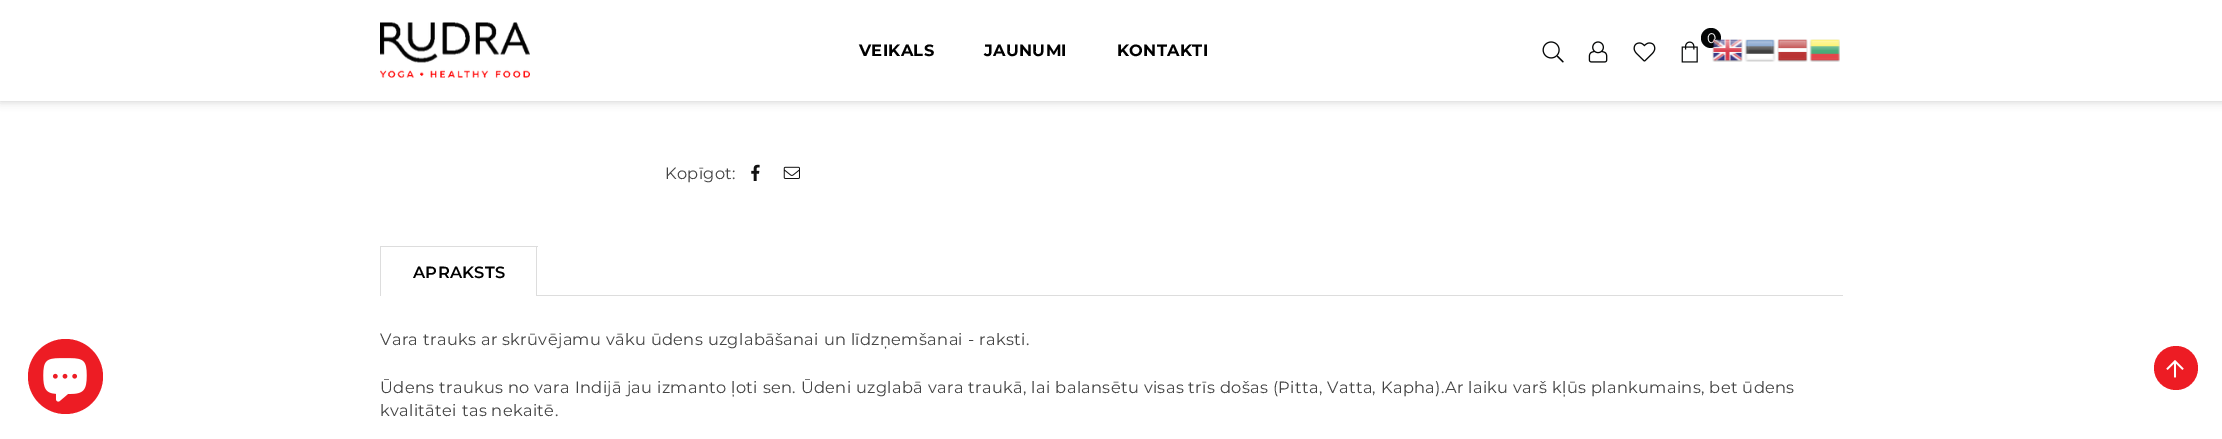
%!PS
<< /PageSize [2222 439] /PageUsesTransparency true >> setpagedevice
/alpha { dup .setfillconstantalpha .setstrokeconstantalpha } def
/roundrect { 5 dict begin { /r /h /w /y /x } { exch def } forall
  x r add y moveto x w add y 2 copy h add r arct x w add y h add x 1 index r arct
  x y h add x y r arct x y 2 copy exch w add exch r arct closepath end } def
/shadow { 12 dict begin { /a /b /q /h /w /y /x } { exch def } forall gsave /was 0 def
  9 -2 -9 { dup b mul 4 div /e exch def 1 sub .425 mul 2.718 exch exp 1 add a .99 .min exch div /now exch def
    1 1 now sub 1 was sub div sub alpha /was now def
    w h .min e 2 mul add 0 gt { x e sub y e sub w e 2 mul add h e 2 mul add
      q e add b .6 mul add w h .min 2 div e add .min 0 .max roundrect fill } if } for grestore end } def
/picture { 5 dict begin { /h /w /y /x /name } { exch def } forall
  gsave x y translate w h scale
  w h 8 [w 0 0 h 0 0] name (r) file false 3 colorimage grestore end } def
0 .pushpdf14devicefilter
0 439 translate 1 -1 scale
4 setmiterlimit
1 setgray
0 0 2222 439 rectfill
0 setgray
0 0 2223 101 0 4.5 0.2 shadow
1 setgray
0 0 2222 101 rectfill
(img1.rgb) 380 22 150 56 picture
/Montserrat-Bold [16.25 0 0 -16.25 0 0] selectfont
0 setgray
859 56 moveto 0.33 0 (VEIKALS) ashow
984 56 moveto 0.33 0 (JAUNUMI) ashow
1117 56 moveto 0.33 0 (KONTAKTI) ashow
0.012 0.02 0.02 setrgbcolor
newpath 1711 38 10 0 360 arc closepath fill
/Montserrat-Regular [14 0 0 -14 0 0] selectfont
1 setgray
1707 43 moveto 0.33 0 (0) ashow
(img2.rgb) 1681 41 17 22 picture
(img3.rgb) 1542 41 22 22 picture
(img4.rgb) 1588 41 20 22 picture
(img5.rgb) 1633 42 23 20 picture
(img6.rgb) 1712 39 31 23 picture
(img7.rgb) 1744 39 32 23 picture
(img8.rgb) 1777 39 31 23 picture
(img9.rgb) 1809 39 31 23 picture
0.929 0.11 0.141 setrgbcolor
newpath 65.5 376.5 37.5 0 360 arc closepath fill
(img10.rgb) 43 358 44 44 picture
/Montserrat-Regular [16.25 0 0 -16.25 0 0] selectfont
0.267 setgray
665 179 moveto 0.33 0 (Kopīgot:) ashow
(img11.rgb) 751 164 9 17 picture
(img12.rgb) 783 166 17 13 picture
0.867 setgray
380 295 1463 1 rectfill
380 246 158 1 rectfill
536 246 1 49 rectfill
380 246 1 49 rectfill
/Montserrat-SemiBold [16.25 0 0 -16.25 0 0] selectfont
0 setgray
413 278 moveto 0.33 0 (APRAKSTS) ashow
1 setgray
381 295 155 1 rectfill
/Montserrat-Regular [16.25 0 0 -16.25 0 0] selectfont
0.267 setgray
380 345 moveto 0.33 0 (Vara trauks ar skrūvējamu vāku ūdens uzglabāšanai un līdzņemšanai - raksti.) ashow
380 393 moveto 0.33 0 (Ūdens traukus no vara Indijā jau izmanto ļoti sen. Ūdeni uzglabā vara traukā, lai balansētu visas trīs došas \(Pitta, Vatta, Kapha\).Ar laiku varš kļūs plankumains, bet ūdens) ashow
380 416 moveto 0.33 0 (kvalitātei tas nekaitē.) ashow
0.929 0.11 0.141 setrgbcolor
newpath 2176 368 22 0 360 arc closepath fill
(img13.rgb) 2166 360 18 18 picture
.poppdf14devicefilter showpage
